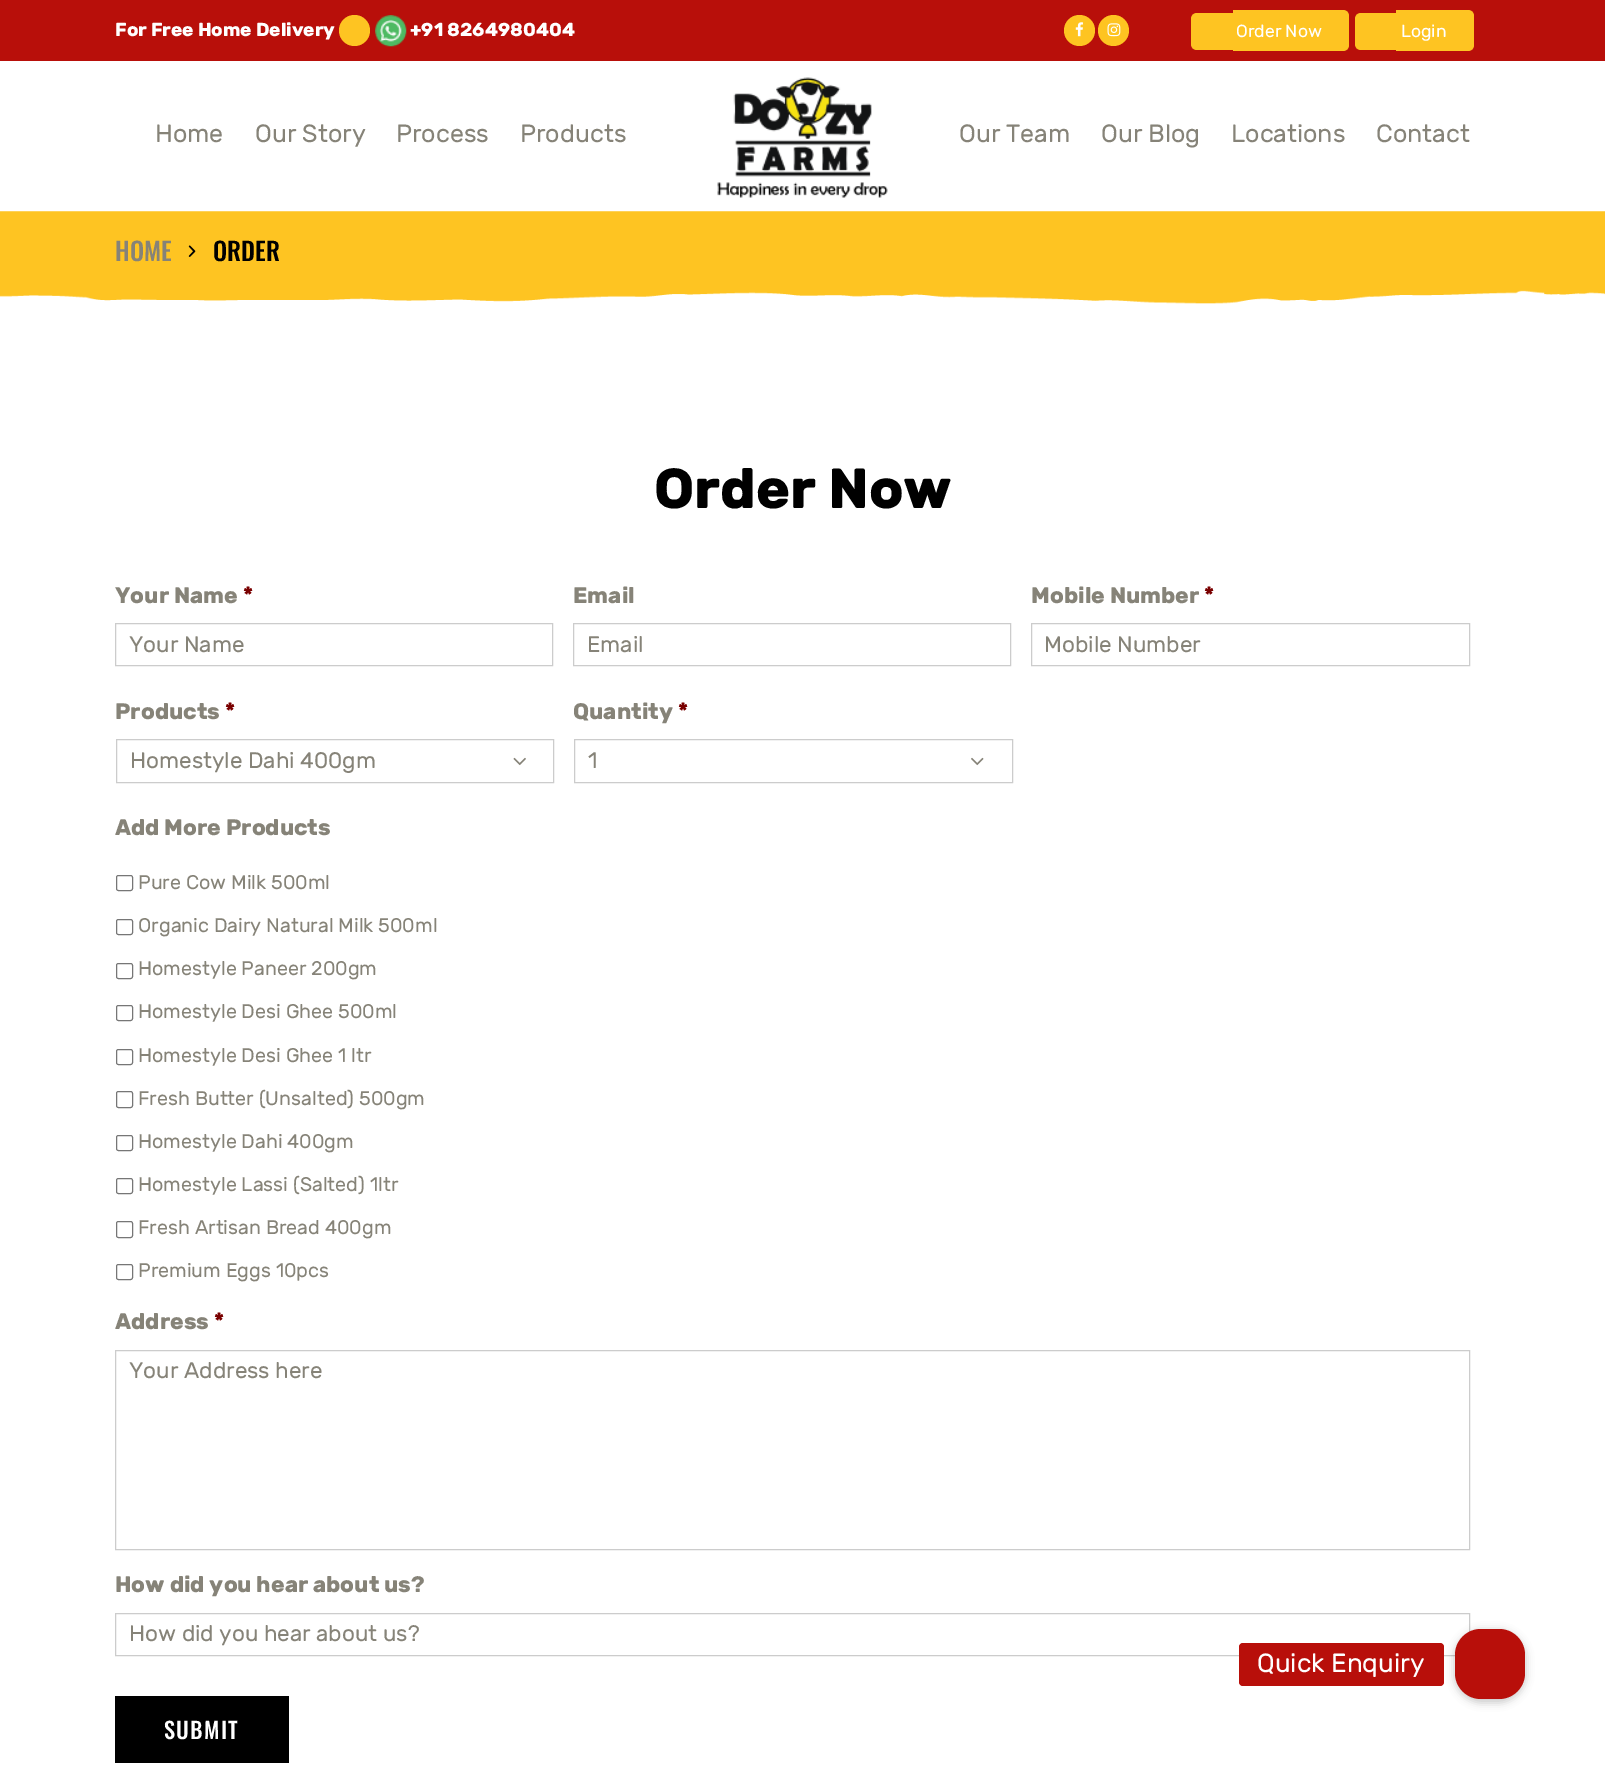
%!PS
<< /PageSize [1605 1788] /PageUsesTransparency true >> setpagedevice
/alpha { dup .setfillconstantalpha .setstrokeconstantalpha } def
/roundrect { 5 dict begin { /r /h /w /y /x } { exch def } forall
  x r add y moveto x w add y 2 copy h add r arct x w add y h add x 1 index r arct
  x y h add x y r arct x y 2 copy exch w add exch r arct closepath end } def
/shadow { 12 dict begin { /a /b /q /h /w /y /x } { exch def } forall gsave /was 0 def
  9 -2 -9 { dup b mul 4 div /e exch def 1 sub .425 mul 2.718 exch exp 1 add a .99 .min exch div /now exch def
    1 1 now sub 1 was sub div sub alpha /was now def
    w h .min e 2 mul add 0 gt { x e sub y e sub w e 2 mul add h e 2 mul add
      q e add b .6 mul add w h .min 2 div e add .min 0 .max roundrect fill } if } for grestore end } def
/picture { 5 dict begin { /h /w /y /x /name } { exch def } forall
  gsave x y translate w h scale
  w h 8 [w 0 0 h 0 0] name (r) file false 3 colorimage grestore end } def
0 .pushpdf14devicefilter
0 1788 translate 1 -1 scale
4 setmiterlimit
1 setgray
0 0 1605 1788 rectfill
0.722 0.059 0.039 setrgbcolor
0 0 1605 61 rectfill
/Rubik-Bold [18.75 0 0 -18.75 0 0] selectfont
1 setgray
115 36 moveto (For Free Home Delivery) show
0.996 0.769 0.133 setrgbcolor
newpath 354.5 30.5 15.5 0 360 arc closepath fill
(img1.rgb) 375 15 32 32 picture
1 setgray
410 36 moveto (+91 8264980404) show
0.996 0.769 0.129 setrgbcolor
newpath 1079.5 30.5 15.5 0 360 arc closepath fill
(img2.rgb) 1075 22 9 15 picture
newpath 1113.5 30.5 15.5 0 360 arc closepath fill
(img3.rgb) 1107 23 14 14 picture
0.996 0.769 0.133 setrgbcolor
newpath 1233 10 moveto 1343 10 lineto 1346.5 10 1349 12.5 1349 16 curveto 1349 45 lineto 1349 48.5 1346.5 51 1343 51 curveto 1233 51 lineto closepath fill
/Rubik-Regular [17.5 0 0 -17.5 0 0] selectfont
1 setgray
1236 37 moveto (Order Now) show
0.996 0.769 0.133 setrgbcolor
newpath 1197 13 moveto 1233 13 lineto 1233 50 lineto 1197 50 lineto 1193.5 50 1191 47.5 1191 44 curveto 1191 19 lineto 1191 15.5 1193.5 13 1197 13 curveto closepath fill
newpath 1396 10 moveto 1468 10 lineto 1471.5 10 1474 12.5 1474 16 curveto 1474 45 lineto 1474 48.5 1471.5 51 1468 51 curveto 1396 51 lineto closepath fill
1 setgray
1401 37 moveto (Login) show
0.996 0.769 0.133 setrgbcolor
newpath 1361 13 moveto 1396 13 lineto 1396 50 lineto 1361 50 lineto 1357.5 50 1355 47.5 1355 44 curveto 1355 19 lineto 1355 15.5 1357.5 13 1361 13 curveto closepath fill
/Rubik-Regular [25 0 0 -25 0 0] selectfont
0.525 0.514 0.471 setrgbcolor
155 142 moveto (Home) show
255 142 moveto (Our Story) show
396 142 moveto (Process) show
520 142 moveto (Products) show
(img4.rgb) 717 77 171 121 picture
959 142 moveto (Our Team) show
1101 142 moveto (Our Blog) show
1231 142 moveto (Locations) show
1376 142 moveto (Contact) show
(img5.rgb) 0 211 1605 93 picture
/Oswald-Medium [25 0 0 -25 0 0] selectfont
115 261 moveto (HOME) show
(img6.rgb) 188 245 8 12 picture
0 setgray
213 261 moveto (ORDER) show
/Rubik-Bold [56.25 0 0 -56.25 0 0] selectfont
654 508 moveto (Order Now) show
/Rubik-Bold [22.5 0 0 -22.5 0 0] selectfont
0.525 0.514 0.471 setrgbcolor
115 603 moveto (Your Name) show
0.475 0 0 setrgbcolor
243 603 moveto (*) show
0.8 setgray
115.5 623.5 437 42 rectstroke
/Rubik-Regular [22.5 0 0 -22.5 0 0] selectfont
0.525 0.514 0.471 setrgbcolor
129 652 moveto (Your Name) show
/Rubik-Bold [22.5 0 0 -22.5 0 0] selectfont
573 603 moveto (Email) show
0.8 setgray
573.5 623.5 437 42 rectstroke
/Rubik-Regular [22.5 0 0 -22.5 0 0] selectfont
0.525 0.514 0.471 setrgbcolor
587 652 moveto (Email) show
/Rubik-Bold [22.5 0 0 -22.5 0 0] selectfont
1031 603 moveto (Mobile Number) show
0.475 0 0 setrgbcolor
1204 603 moveto (*) show
0.8 setgray
1031.5 623.5 438 42 rectstroke
/Rubik-Regular [22.5 0 0 -22.5 0 0] selectfont
0.525 0.514 0.471 setrgbcolor
1044 652 moveto (Mobile Number) show
/Rubik-Bold [22.5 0 0 -22.5 0 0] selectfont
115 719 moveto (Products) show
0.475 0 0 setrgbcolor
225 719 moveto (*) show
0.8 setgray
116.5 739.5 437 43 rectstroke
/Rubik-Regular [22.5 0 0 -22.5 0 0] selectfont
0.525 0.514 0.471 setrgbcolor
130 768 moveto (Homestyle Dahi 400gm) show
(img7.rgb) 513 757 13 9 picture
/Rubik-Bold [22.5 0 0 -22.5 0 0] selectfont
573 719 moveto (Quantity) show
0.475 0 0 setrgbcolor
678 719 moveto (*) show
0.8 setgray
574.5 739.5 438 43 rectstroke
/Rubik-Regular [22.5 0 0 -22.5 0 0] selectfont
0.525 0.514 0.471 setrgbcolor
588 768 moveto (1) show
(img8.rgb) 971 757 13 9 picture
/Rubik-Bold [22.5 0 0 -22.5 0 0] selectfont
115 835 moveto (Add More Products) show
0.463 setgray
116.5 875.5 16 15 2 roundrect stroke
/Rubik-Regular [19.75 0 0 -19.75 0 0] selectfont
0.525 0.514 0.471 setrgbcolor
138 889 moveto (Pure Cow Milk 500ml) show
0.463 setgray
116.5 919.5 16 15 2 roundrect stroke
0.525 0.514 0.471 setrgbcolor
138 932 moveto (Organic Dairy Natural Milk 500ml) show
0.463 setgray
116.5 963.5 16 15 2 roundrect stroke
0.525 0.514 0.471 setrgbcolor
138 975 moveto (Homestyle Paneer 200gm) show
0.463 setgray
116.5 1005.5 16 15 2 roundrect stroke
0.525 0.514 0.471 setrgbcolor
138 1018 moveto (Homestyle Desi Ghee 500ml) show
0.463 setgray
116.5 1049.5 16 15 2 roundrect stroke
0.525 0.514 0.471 setrgbcolor
138 1062 moveto (Homestyle Desi Ghee 1 ltr) show
0.463 setgray
116.5 1091.5 16 16 2 roundrect stroke
0.525 0.514 0.471 setrgbcolor
138 1105 moveto (Fresh Butter \(Unsalted\) 500gm) show
0.463 setgray
116.5 1135.5 16 15 2 roundrect stroke
0.525 0.514 0.471 setrgbcolor
138 1148 moveto (Homestyle Dahi 400gm) show
0.463 setgray
116.5 1178.5 16 15 2 roundrect stroke
0.525 0.514 0.471 setrgbcolor
138 1191 moveto (Homestyle Lassi \(Salted\) 1ltr) show
0.463 setgray
116.5 1221.5 16 16 2 roundrect stroke
0.525 0.514 0.471 setrgbcolor
138 1234 moveto (Fresh Artisan Bread 400gm) show
0.463 setgray
116.5 1264.5 16 15 2 roundrect stroke
0.525 0.514 0.471 setrgbcolor
138 1277 moveto (Premium Eggs 10pcs) show
/Rubik-Bold [22.5 0 0 -22.5 0 0] selectfont
115 1329 moveto (Address) show
0.475 0 0 setrgbcolor
214 1329 moveto (*) show
0.8 setgray
115.5 1350.5 1354 199 rectstroke
/Rubik-Regular [22.5 0 0 -22.5 0 0] selectfont
0.525 0.514 0.471 setrgbcolor
129 1378 moveto (Your Address here) show
/Rubik-Bold [22.5 0 0 -22.5 0 0] selectfont
115 1592 moveto (How did you hear about us?) show
0.8 setgray
115.5 1613.5 1354 42 rectstroke
/Rubik-Regular [22.5 0 0 -22.5 0 0] selectfont
0.525 0.514 0.471 setrgbcolor
129 1641 moveto (How did you hear about us?) show
0 setgray
115 1696 174 67 rectfill
/Oswald-Medium [22.5 0 0 -22.5 0 0] selectfont
1 setgray
164 1739 moveto 1.25 0 (SUBMIT) ashow
0 setgray
1454 1630 72 73 28 4 0.2 shadow
0.722 0.059 0.039 setrgbcolor
1455 1629 70 70 26 roundrect fill
1239 1643 205 43 4 roundrect fill
/Rubik-Regular [26.25 0 0 -26.25 0 0] selectfont
1 setgray
1257 1672 moveto (Quick Enquiry) show
.poppdf14devicefilter showpage
